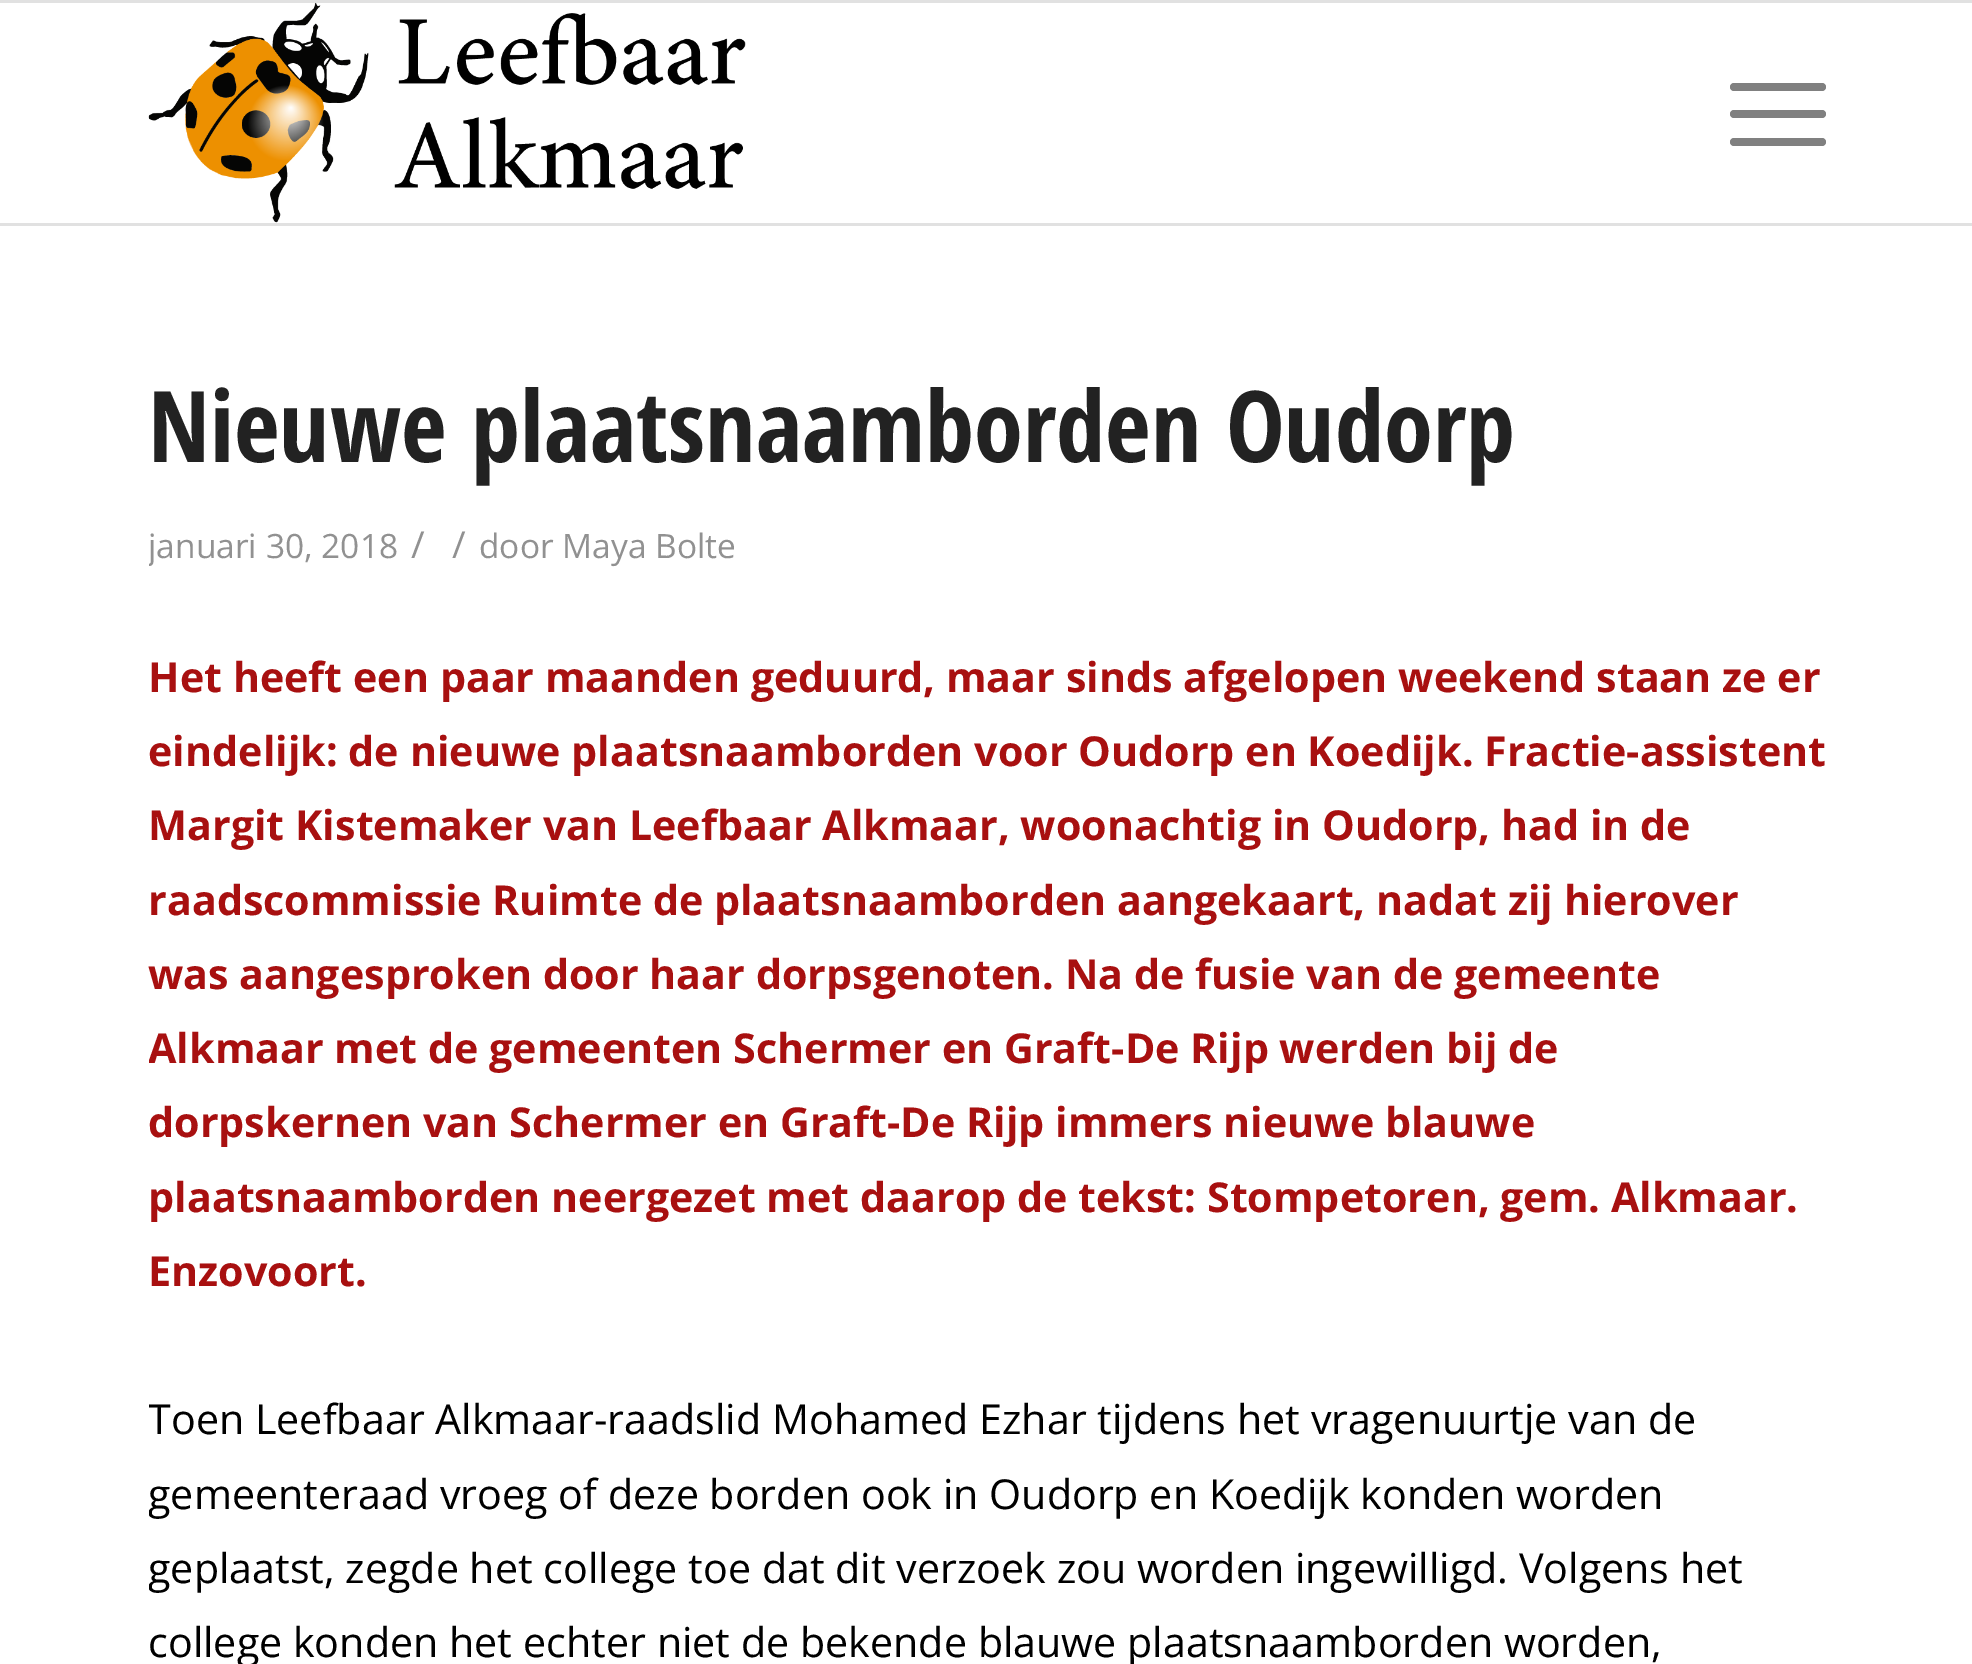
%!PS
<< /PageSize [1972 1664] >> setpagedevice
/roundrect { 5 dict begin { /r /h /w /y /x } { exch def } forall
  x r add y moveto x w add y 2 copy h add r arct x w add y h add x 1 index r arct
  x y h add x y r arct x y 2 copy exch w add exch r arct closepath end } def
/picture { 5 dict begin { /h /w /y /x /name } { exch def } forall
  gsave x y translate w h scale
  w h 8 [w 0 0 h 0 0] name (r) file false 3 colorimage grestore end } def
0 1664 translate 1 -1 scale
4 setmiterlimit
1 setgray
0 0 1972 1664 rectfill
0.882 setgray
0 0 1972 3 rectfill
0 223 1972 3 rectfill
(img1.rgb) 148 2 598 221 picture
0.502 setgray
1730 110 96 8 4 roundrect fill
1730 83 96 8 4 roundrect fill
1730 138 96 8 4 roundrect fill
/OpenSansCondensed-Bold [99 0 0 -99 0 0] selectfont
0.133 setgray
148 462 moveto (Nieuwe plaatsnaamborden Oudorp) show
gsave
149 363 1677 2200 rectclip
/OpenSans-Regular [33.5 0 0 -33.5 0 0] selectfont
0.569 setgray
148 558 moveto (januari 30, 2018) show
grestore
/OpenSans-Regular [37 0 0 -37 0 0] selectfont
0.569 setgray
411 558 moveto (/) show
452 558 moveto (/) show
/OpenSans-Regular [33.5 0 0 -33.5 0 0] selectfont
479 558 moveto (door Maya Bolte) show
/OpenSans-Bold [41.25 0 0 -41.25 0 0] selectfont
0.659 0.063 0.063 setrgbcolor
148 692 moveto (Het heeft een paar maanden geduurd, maar sinds afgelopen weekend staan ze er) show
148 766 moveto (eindelijk: de nieuwe plaatsnaamborden voor Oudorp en Koedijk. Fractie-assistent) show
148 840 moveto (Margit Kistemaker van Leefbaar Alkmaar, woonachtig in Oudorp, had in de) show
148 915 moveto (raadscommissie Ruimte de plaatsnaamborden aangekaart, nadat zij hierover) show
148 989 moveto (was aangesproken door haar dorpsgenoten. Na de fusie van de gemeente) show
gsave
149 363 1677 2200 rectclip
148 1063 moveto (Alkmaar met de gemeenten Schermer en Graft-De Rijp werden bij de) show
grestore
148 1137 moveto (dorpskernen van Schermer en Graft-De Rijp immers nieuwe blauwe) show
148 1212 moveto (plaatsnaamborden neergezet met daarop de tekst: Stompetoren, gem. Alkmaar.) show
148 1286 moveto (Enzovoort.) show
gsave
149 363 1677 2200 rectclip
/OpenSans-Regular [41.25 0 0 -41.25 0 0] selectfont
0 setgray
148 1434 moveto (Toen Leefbaar Alkmaar-raadslid Mohamed Ezhar tijdens het vragenuurtje van de) show
148 1509 moveto (gemeenteraad vroeg of deze borden ook in Oudorp en Koedijk konden worden) show
148 1583 moveto (geplaatst, zegde het college toe dat dit verzoek zou worden ingewilligd. Volgens het) show
grestore
/OpenSans-Regular [41.25 0 0 -41.25 0 0] selectfont
0 setgray
148 1657 moveto (college konden het echter niet de bekende blauwe plaatsnaamborden worden,) show
showpage
